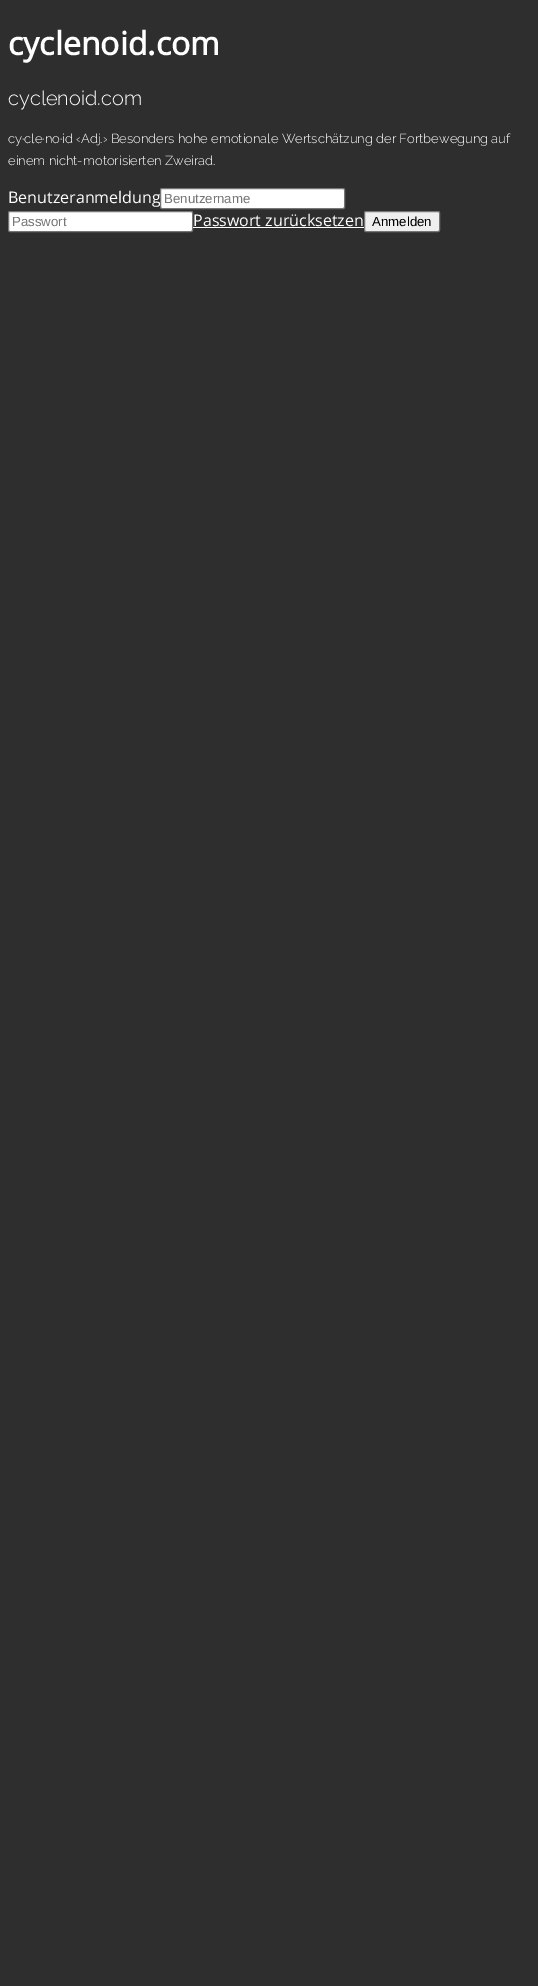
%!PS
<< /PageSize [538 1986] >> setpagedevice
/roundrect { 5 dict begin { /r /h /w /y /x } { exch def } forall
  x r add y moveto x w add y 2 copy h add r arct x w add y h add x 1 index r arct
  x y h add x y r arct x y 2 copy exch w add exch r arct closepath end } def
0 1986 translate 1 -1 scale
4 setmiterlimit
0.18 setgray
0 0 538 1986 rectfill
/OpenSans-Bold [32 0 0 -32 0 0] selectfont
1 setgray
8 55 moveto (cyclenoid.com) show
/Raleway-Light [20 0 0 -20 0 0] selectfont
8 105 moveto (cyclenoid.com) show
/Raleway-Light [13 0 0 -13 0 0] selectfont
8 143 moveto (cy·cle·no·id ‹Adj.› Besonders hohe emotionale Wertschätzung der Fortbewegung auf) show
8 165 moveto (einem nicht-motorisierten Zweirad.) show
/OpenSans-Regular [16 0 0 -16 0 0] selectfont
8 203 moveto (Benutzeranmeldung) show
160.5 188.5 184 20 1.5 roundrect gsave fill grestore
0.463 setgray
stroke
/LiberationSans-Regular [13.25 0 0 -13.25 0 0] selectfont
0.459 setgray
164 203 moveto (Benutzername) show
1 setgray
8.5 211.5 184 20 1.5 roundrect gsave fill grestore
0.463 setgray
stroke
0.459 setgray
12 226 moveto (Passwort) show
/OpenSans-Regular [16 0 0 -16 0 0] selectfont
1 setgray
193 226 moveto (Passwort zurücksetzen) show
193 227 171 1 rectfill
0.937 setgray
364.5 211.5 75 20 1.5 roundrect gsave fill grestore
0.463 setgray
stroke
/LiberationSans-Regular [13.25 0 0 -13.25 0 0] selectfont
0 setgray
372 226 moveto (Anmelden) show
showpage
